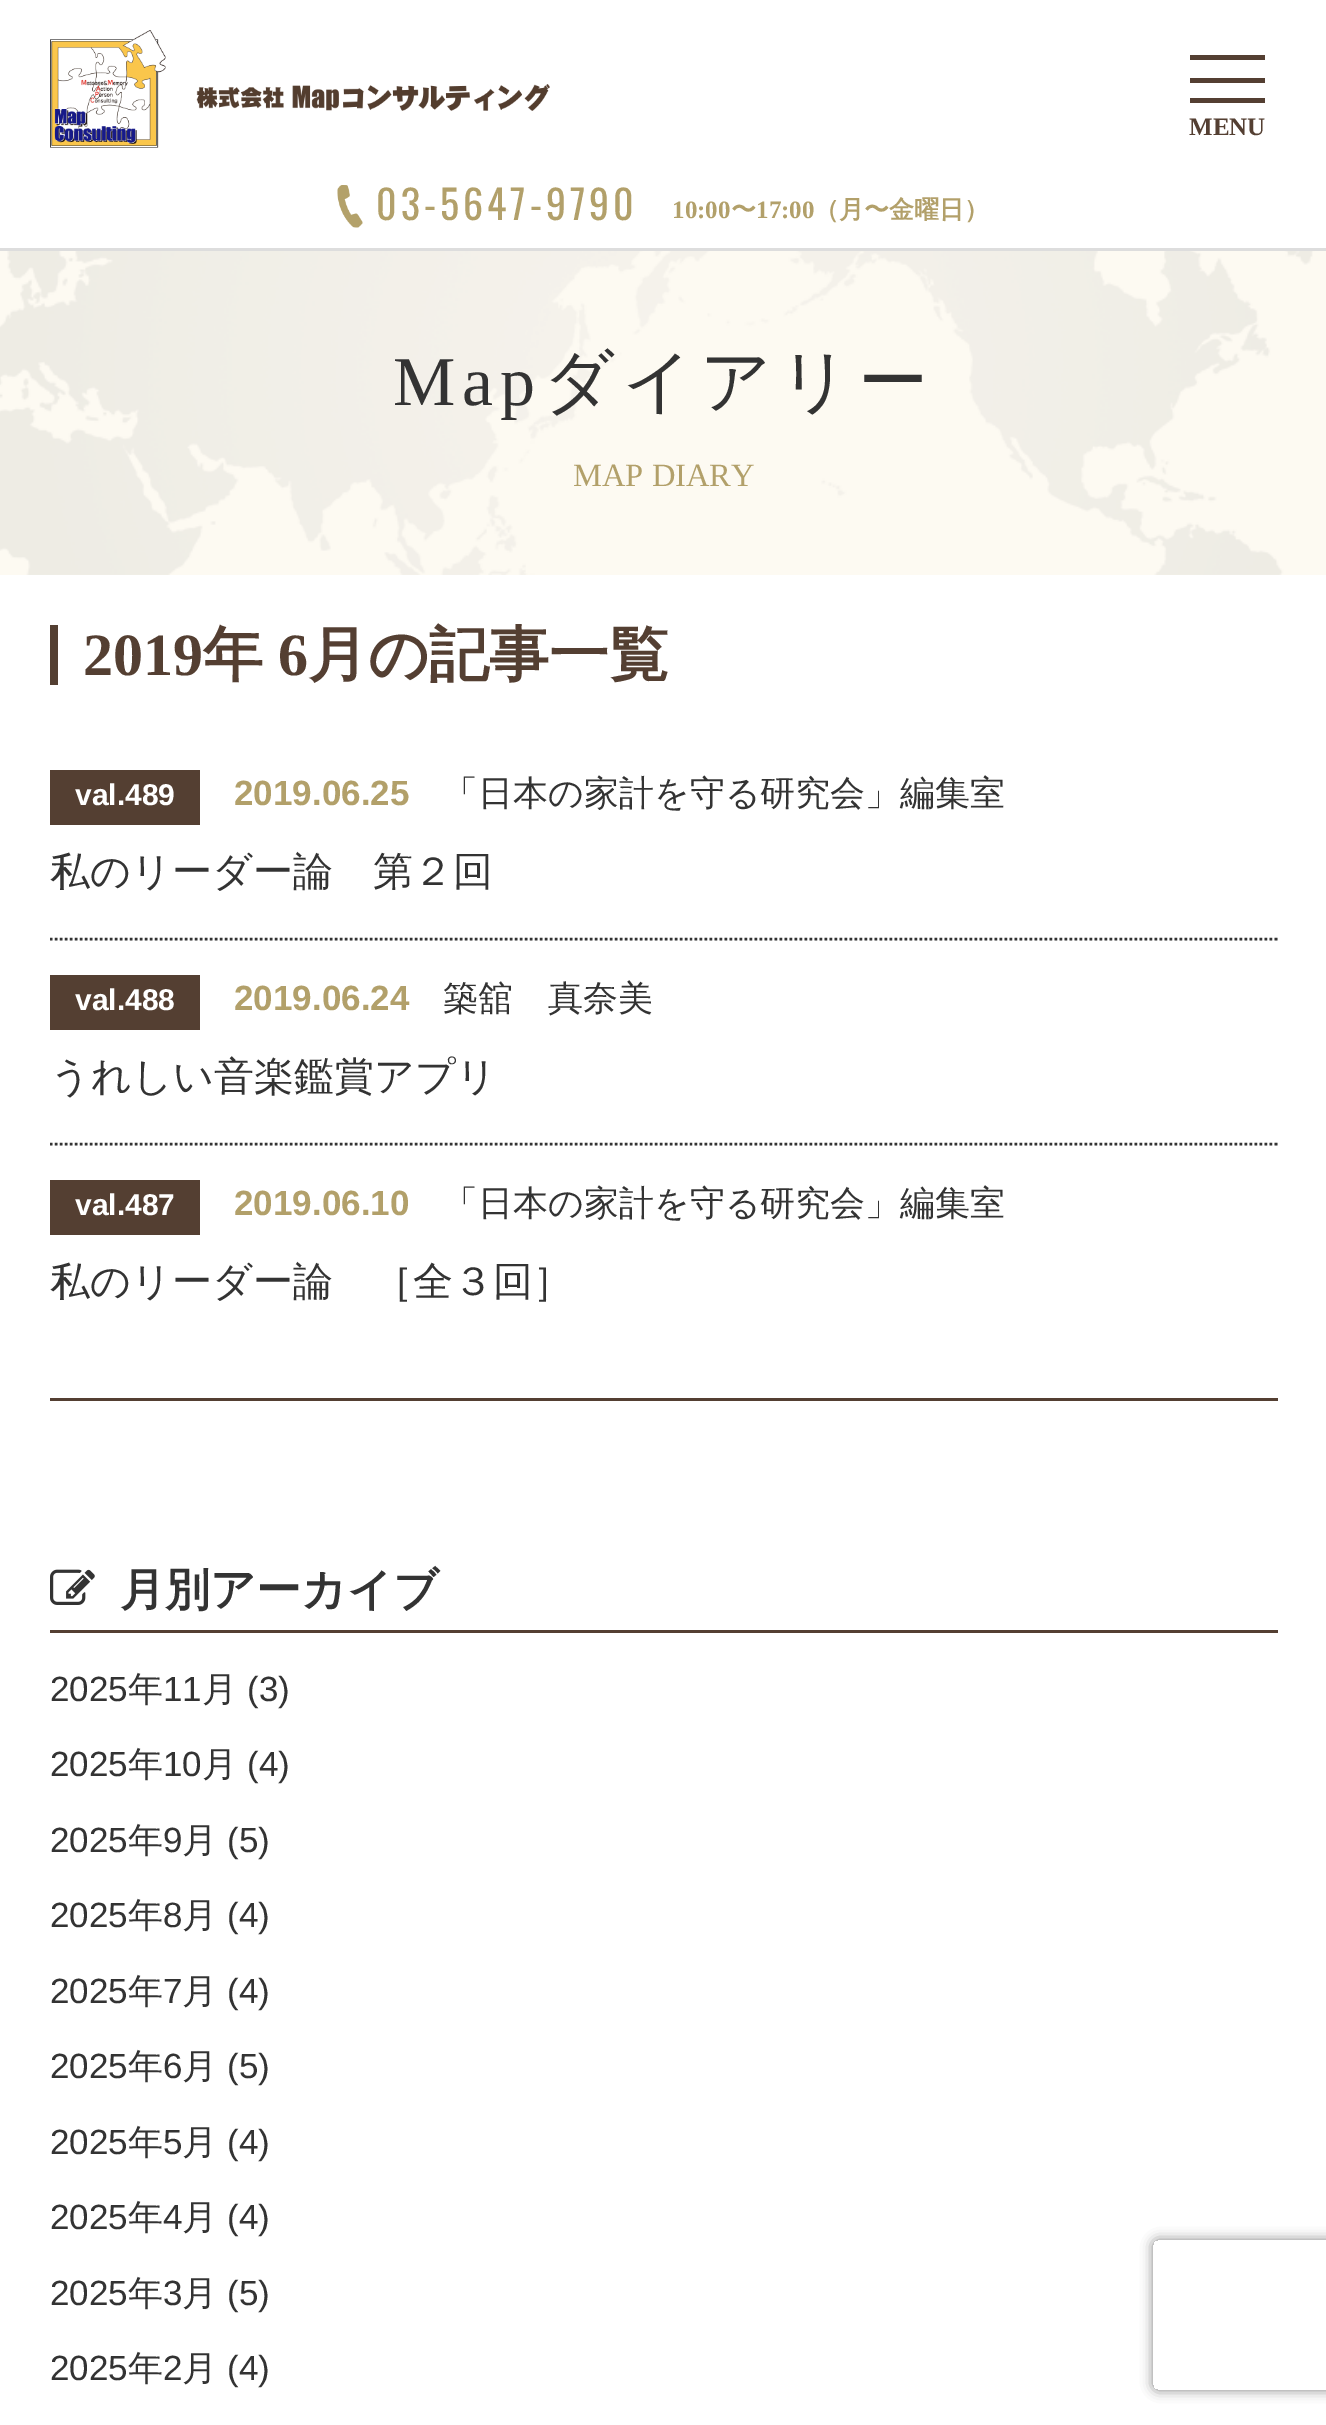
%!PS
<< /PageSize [1326 2425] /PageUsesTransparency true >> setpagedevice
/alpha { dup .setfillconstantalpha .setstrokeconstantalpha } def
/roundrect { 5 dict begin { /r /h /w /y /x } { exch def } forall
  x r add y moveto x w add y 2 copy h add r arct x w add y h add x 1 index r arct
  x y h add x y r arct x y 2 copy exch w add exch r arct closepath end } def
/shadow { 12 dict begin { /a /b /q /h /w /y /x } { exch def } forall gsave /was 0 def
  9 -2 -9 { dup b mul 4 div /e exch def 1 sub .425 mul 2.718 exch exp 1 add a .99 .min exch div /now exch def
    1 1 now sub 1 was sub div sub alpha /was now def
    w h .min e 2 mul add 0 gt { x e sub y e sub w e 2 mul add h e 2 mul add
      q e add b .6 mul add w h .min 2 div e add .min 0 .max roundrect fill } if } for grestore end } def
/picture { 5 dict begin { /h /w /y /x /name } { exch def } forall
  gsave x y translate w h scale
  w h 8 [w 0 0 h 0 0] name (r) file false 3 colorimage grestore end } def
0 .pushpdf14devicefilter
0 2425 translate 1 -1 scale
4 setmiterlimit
1 setgray
0 0 1326 2425 rectfill
0.329 0.247 0.196 setrgbcolor
1190 55 75 5 rectfill
1190 98 75 5 rectfill
1190 78 75 5 rectfill
/LiberationSerif-Bold [25 0 0 -25 0 0] selectfont
1189 135 moveto (MENU) show
(img1.rgb) 50 30 500 118 picture
0.867 setgray
0 248 1326 3 rectfill
(img2.rgb) 337 185 26 43 picture
/Oswald-Regular [40 0 0 -40 0 0] selectfont
0.698 0.627 0.416 setrgbcolor
376 220 moveto 4 0 (03-5647-9790) ashow
/LiberationSerif-Bold [25 0 0 -25 0 0] selectfont
672 218 moveto (10:00) show
/WenQuanYiZenHei-Bold [25 0 0 -25 0 0] selectfont
731 218 moveto (〜) show
/LiberationSerif-Bold [25 0 0 -25 0 0] selectfont
756 218 moveto (17:00) show
/WenQuanYiZenHei-Bold [25 0 0 -25 0 0] selectfont
814 218 moveto (（月〜金曜日）) show
(img3.rgb) 0 251 1326 324 picture
/LiberationSerif-Regular [70 0 0 -70 0 0] selectfont
0.2 setgray
393 405 moveto 7 0 (Map) ashow
/WenQuanYiZenHei-Medium [70 0 0 -70 0 0] selectfont
543 405 moveto 7 0 (ダイアリー) ashow
/LiberationSerif-Regular [32.5 0 0 -32.5 0 0] selectfont
0.698 0.627 0.416 setrgbcolor
573 486 moveto (MAP DIARY) show
0.329 0.247 0.196 setrgbcolor
50 625 8 60 rectfill
/LiberationSerif-Bold [60 0 0 -60 0 0] selectfont
83 675 moveto (2019) show
/WenQuanYiZenHei-Bold [60 0 0 -60 0 0] selectfont
203 675 moveto (年) show
/LiberationSerif-Bold [60 0 0 -60 0 0] selectfont
278 675 moveto (6) show
/WenQuanYiZenHei-Bold [60 0 0 -60 0 0] selectfont
308 675 moveto (月の記事一覧) show
50 1398 1228 3 rectfill
50 770 150 55 rectfill
/LiberationSans-Bold [30 0 0 -30 0 0] selectfont
1 setgray
75 805 moveto (val.489) show
/LiberationSans-Bold [35 0 0 -35 0 0] selectfont
0.698 0.627 0.416 setrgbcolor
234 805 moveto (2019.06.25) show
/WenQuanYiZenHei-Medium [35 0 0 -35 0 0] selectfont
0.2 setgray
443 805 moveto (「日本の家計を守る研究会」編集室) show
/WenQuanYiZenHei-Medium [40 0 0 -40 0 0] selectfont
50 885 moveto (私のリーダー論　第２回) show
2.5 setlinewidth
[2.5 2.5] 0 setdash
newpath 50 939 moveto 1277.5 939 lineto stroke
0.329 0.247 0.196 setrgbcolor
50 975 150 55 rectfill
/LiberationSans-Bold [30 0 0 -30 0 0] selectfont
1 setgray
75 1010 moveto (val.488) show
/LiberationSans-Bold [35 0 0 -35 0 0] selectfont
0.698 0.627 0.416 setrgbcolor
234 1010 moveto (2019.06.24) show
/WenQuanYiZenHei-Medium [35 0 0 -35 0 0] selectfont
0.2 setgray
443 1010 moveto (築舘　真奈美) show
/WenQuanYiZenHei-Medium [40 0 0 -40 0 0] selectfont
50 1090 moveto (うれしい音楽鑑賞アプリ) show
newpath 50 1144 moveto 1277.5 1144 lineto stroke
0.329 0.247 0.196 setrgbcolor
50 1180 150 55 rectfill
/LiberationSans-Bold [30 0 0 -30 0 0] selectfont
1 setgray
75 1215 moveto (val.487) show
/LiberationSans-Bold [35 0 0 -35 0 0] selectfont
0.698 0.627 0.416 setrgbcolor
234 1215 moveto (2019.06.10) show
/WenQuanYiZenHei-Medium [35 0 0 -35 0 0] selectfont
0.2 setgray
443 1215 moveto (「日本の家計を守る研究会」編集室) show
/WenQuanYiZenHei-Medium [40 0 0 -40 0 0] selectfont
50 1295 moveto (私のリーダー論　［全３回］) show
0.329 0.247 0.196 setrgbcolor
50 1630 1228 3 rectfill
(img4.rgb) 50 1569 45 36 picture
/WenQuanYiZenHei-Bold [45 0 0 -45 0 0] selectfont
0.2 setgray
120 1605 moveto (月別アーカイブ) show
/LiberationSans-Regular [35 0 0 -35 0 0] selectfont
50 1701 moveto (2025) show
/WenQuanYiZenHei-Medium [35 0 0 -35 0 0] selectfont
128 1701 moveto (年) show
/LiberationSans-Regular [35 0 0 -35 0 0] selectfont
163 1701 moveto (11) show
/WenQuanYiZenHei-Medium [35 0 0 -35 0 0] selectfont
202 1701 moveto (月) show
/LiberationSans-Regular [35 0 0 -35 0 0] selectfont
247 1701 moveto (\(3\)) show
50 1776 moveto (2025) show
/WenQuanYiZenHei-Medium [35 0 0 -35 0 0] selectfont
128 1776 moveto (年) show
/LiberationSans-Regular [35 0 0 -35 0 0] selectfont
163 1776 moveto (10) show
/WenQuanYiZenHei-Medium [35 0 0 -35 0 0] selectfont
202 1776 moveto (月) show
/LiberationSans-Regular [35 0 0 -35 0 0] selectfont
247 1776 moveto (\(4\)) show
50 1852 moveto (2025) show
/WenQuanYiZenHei-Medium [35 0 0 -35 0 0] selectfont
128 1852 moveto (年) show
/LiberationSans-Regular [35 0 0 -35 0 0] selectfont
163 1852 moveto (9) show
/WenQuanYiZenHei-Medium [35 0 0 -35 0 0] selectfont
182 1852 moveto (月) show
/LiberationSans-Regular [35 0 0 -35 0 0] selectfont
227 1852 moveto (\(5\)) show
50 1927 moveto (2025) show
/WenQuanYiZenHei-Medium [35 0 0 -35 0 0] selectfont
128 1927 moveto (年) show
/LiberationSans-Regular [35 0 0 -35 0 0] selectfont
163 1927 moveto (8) show
/WenQuanYiZenHei-Medium [35 0 0 -35 0 0] selectfont
182 1927 moveto (月) show
/LiberationSans-Regular [35 0 0 -35 0 0] selectfont
227 1927 moveto (\(4\)) show
50 2003 moveto (2025) show
/WenQuanYiZenHei-Medium [35 0 0 -35 0 0] selectfont
128 2003 moveto (年) show
/LiberationSans-Regular [35 0 0 -35 0 0] selectfont
163 2003 moveto (7) show
/WenQuanYiZenHei-Medium [35 0 0 -35 0 0] selectfont
182 2003 moveto (月) show
/LiberationSans-Regular [35 0 0 -35 0 0] selectfont
227 2003 moveto (\(4\)) show
50 2078 moveto (2025) show
/WenQuanYiZenHei-Medium [35 0 0 -35 0 0] selectfont
128 2078 moveto (年) show
/LiberationSans-Regular [35 0 0 -35 0 0] selectfont
163 2078 moveto (6) show
/WenQuanYiZenHei-Medium [35 0 0 -35 0 0] selectfont
182 2078 moveto (月) show
/LiberationSans-Regular [35 0 0 -35 0 0] selectfont
227 2078 moveto (\(5\)) show
50 2154 moveto (2025) show
/WenQuanYiZenHei-Medium [35 0 0 -35 0 0] selectfont
128 2154 moveto (年) show
/LiberationSans-Regular [35 0 0 -35 0 0] selectfont
163 2154 moveto (5) show
/WenQuanYiZenHei-Medium [35 0 0 -35 0 0] selectfont
182 2154 moveto (月) show
/LiberationSans-Regular [35 0 0 -35 0 0] selectfont
227 2154 moveto (\(4\)) show
50 2229 moveto (2025) show
/WenQuanYiZenHei-Medium [35 0 0 -35 0 0] selectfont
128 2229 moveto (年) show
/LiberationSans-Regular [35 0 0 -35 0 0] selectfont
163 2229 moveto (4) show
/WenQuanYiZenHei-Medium [35 0 0 -35 0 0] selectfont
182 2229 moveto (月) show
/LiberationSans-Regular [35 0 0 -35 0 0] selectfont
227 2229 moveto (\(4\)) show
50 2305 moveto (2025) show
/WenQuanYiZenHei-Medium [35 0 0 -35 0 0] selectfont
128 2305 moveto (年) show
/LiberationSans-Regular [35 0 0 -35 0 0] selectfont
163 2305 moveto (3) show
/WenQuanYiZenHei-Medium [35 0 0 -35 0 0] selectfont
182 2305 moveto (月) show
/LiberationSans-Regular [35 0 0 -35 0 0] selectfont
227 2305 moveto (\(5\)) show
50 2380 moveto (2025) show
/WenQuanYiZenHei-Medium [35 0 0 -35 0 0] selectfont
128 2380 moveto (年) show
/LiberationSans-Regular [35 0 0 -35 0 0] selectfont
163 2380 moveto (2) show
/WenQuanYiZenHei-Medium [35 0 0 -35 0 0] selectfont
182 2380 moveto (月) show
/LiberationSans-Regular [35 0 0 -35 0 0] selectfont
227 2380 moveto (\(4\)) show
gsave
newpath 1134 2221 moveto 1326 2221 lineto 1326 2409 lineto 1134 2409 lineto closepath 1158 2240 moveto 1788 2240 lineto 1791 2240 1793 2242 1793 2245 curveto 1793 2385 lineto 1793 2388 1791 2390 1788 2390 curveto 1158 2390 lineto 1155 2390 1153 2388 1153 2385 curveto 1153 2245 lineto 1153 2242 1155 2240 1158 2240 curveto closepath eoclip newpath
0.502 setgray
1153 2240 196 150 5 6 1 shadow
grestore
.poppdf14devicefilter showpage
